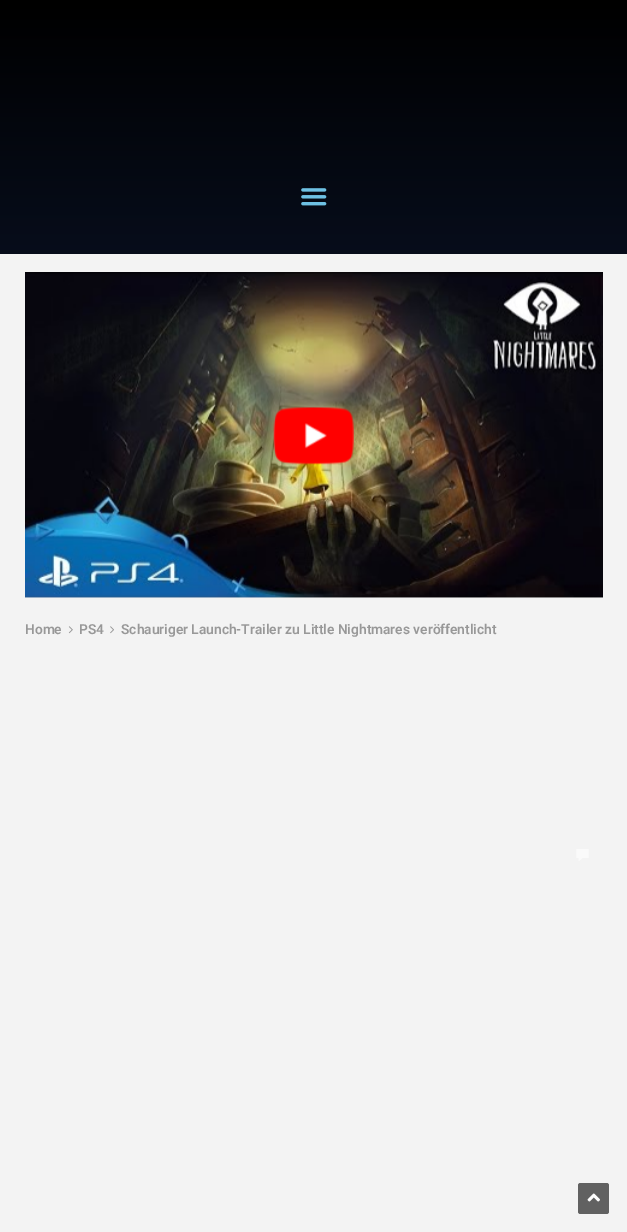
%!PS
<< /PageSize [627 1232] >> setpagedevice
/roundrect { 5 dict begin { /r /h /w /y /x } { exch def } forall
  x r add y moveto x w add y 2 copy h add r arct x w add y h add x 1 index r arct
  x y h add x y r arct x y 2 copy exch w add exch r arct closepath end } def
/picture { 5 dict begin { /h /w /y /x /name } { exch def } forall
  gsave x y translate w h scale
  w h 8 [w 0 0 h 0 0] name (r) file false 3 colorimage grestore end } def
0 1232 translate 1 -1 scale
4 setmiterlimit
1 setgray
0 0 627 1232 rectfill
gsave newpath 0 0 moveto 627 0 lineto 627 254 lineto 0 254 lineto closepath clip newpath
<< /ShadingType 2 /ColorSpace /DeviceRGB /Coords [314 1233 314 0] /Extend [true true] /Function << /FunctionType 3 /Domain [0 1] /Functions [<< /FunctionType 2 /Domain [0 1] /C0 [0.125 0.247 0.51] /C1 [0.125 0.247 0.51] /N 1 >> << /FunctionType 2 /Domain [0 1] /C0 [0.125 0.247 0.51] /C1 [0 0 0] /N 1 >>] /Bounds [0.01] /Encode [0 1 0 1] >> >> shfill grestore
(img1.rgb) 301 188 26 18 picture
0.953 setgray
0 254 627 978 rectfill
(img2.rgb) 25 272 578 326 picture
(img3.rgb) 273 407 81 58 picture
/Roboto-SemiBold [13.75 0 0 -13.75 0 0] selectfont
0.596 setgray
25 634 moveto (Home) show
(img4.rgb) 68 626 5 8 picture
79 634 moveto (PS4) show
(img5.rgb) 110 626 4 8 picture
121 634 moveto (Schauriger Launch-Trailer zu Little Nightmares veröffentlicht) show
(img6.rgb) 576 849 13 12 picture
0.38 setgray
578 1183 31 31 2.5 roundrect fill
(img7.rgb) 587 1193 13 9 picture
showpage
